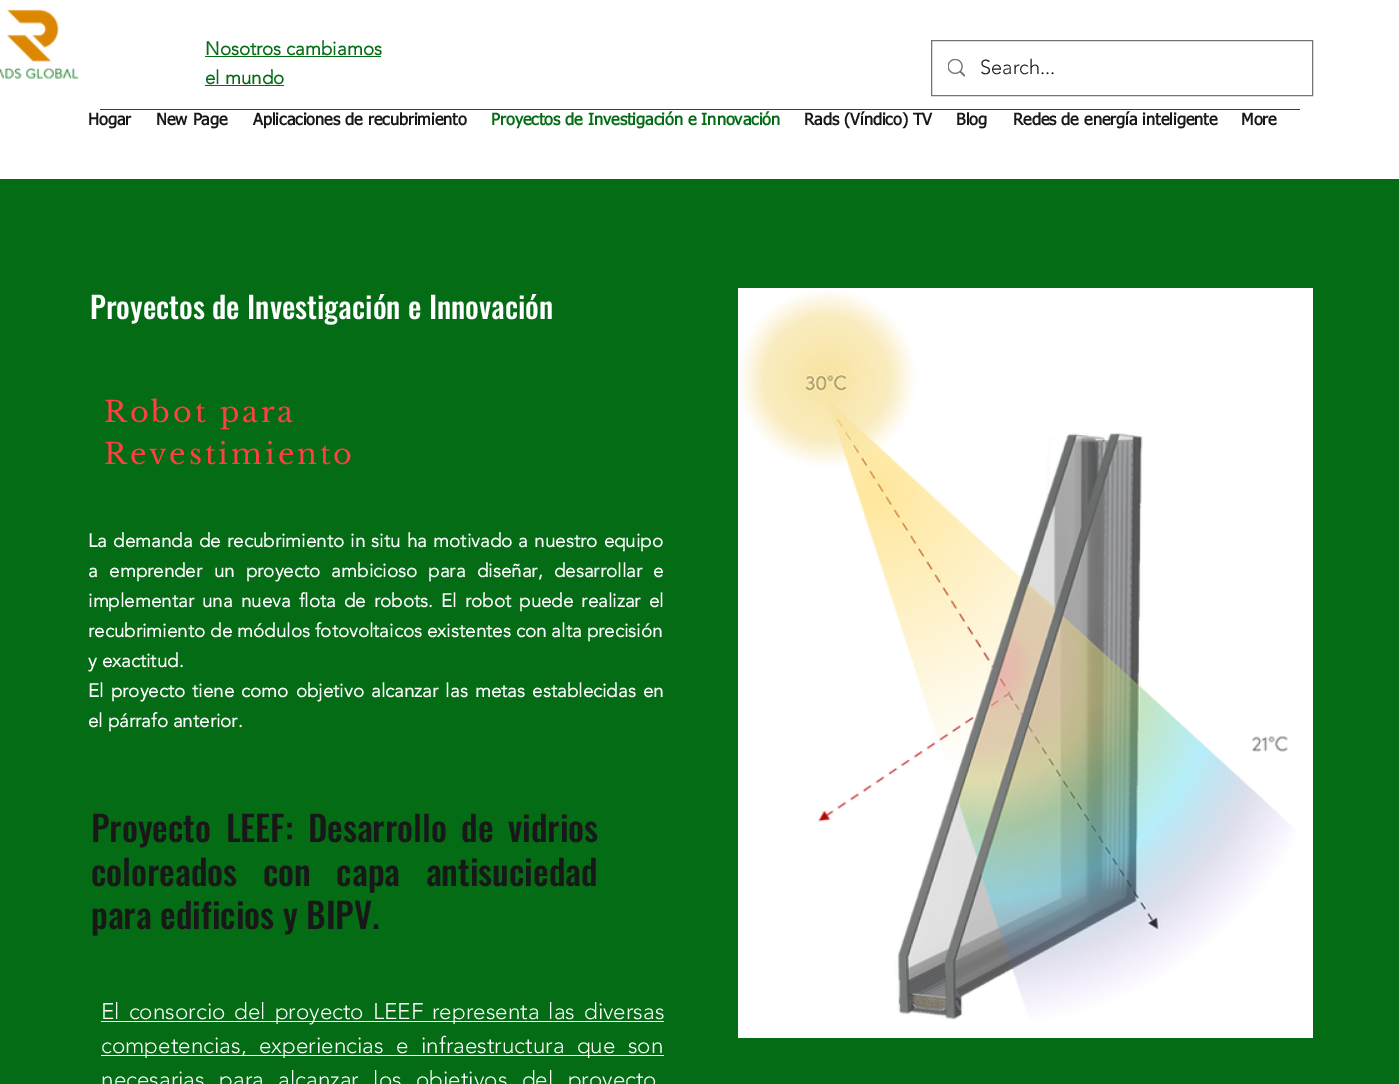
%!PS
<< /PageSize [1399 1084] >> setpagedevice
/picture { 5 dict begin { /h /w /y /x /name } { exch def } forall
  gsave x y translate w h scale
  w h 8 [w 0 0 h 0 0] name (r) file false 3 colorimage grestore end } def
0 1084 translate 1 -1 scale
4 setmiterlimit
1 setgray
0 0 1399 1084 rectfill
(img1.rgb) 0 9 79 70 picture
/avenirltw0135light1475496-Bold [18.75 0 0 -18.75 0 0] selectfont
0.016 0.424 0.078 setrgbcolor
205 55 moveto (Nosotros cambiamos) show
205 56 176 1 rectfill
205 84 moveto (el mundo) show
205 85 79 1 rectfill
0.455 setgray
931.5 40.5 381 55 rectstroke
(img2.rgb) 948 59 17 18 picture
/avenirltw0135light1475496-Light [20 0 0 -20 0 0] selectfont
0.094 setgray
980 74 moveto (Search...) show
0.231 setgray
100 109 1200 1 rectfill
/tahoma-Bold [16.25 0 0 -16.25 0 0] selectfont
0.094 setgray
88 125 moveto (Hogar) show
156 125 moveto (New Page) show
253 125 moveto (Aplicaciones de recubrimiento) show
0.016 0.424 0.078 setrgbcolor
491 125 moveto (Proyectos de Investigación e Innovación) show
0.094 setgray
804 125 moveto (Rads \(Víndico\) TV) show
956 125 moveto (Blog) show
1013 125 moveto (Redes de energía inteligente) show
1241 125 moveto (More) show
0.016 0.424 0.078 setrgbcolor
0 179 1399 905 rectfill
/Oswald-Medium [30 0 0 -30 0 0] selectfont
1 setgray
90 319 moveto (Proyectos de Investigación e Innovación) show
/LibreBaskerville-Regular [28.75 0 0 -28.75 0 0] selectfont
1 0.251 0.251 setrgbcolor
104 422 moveto 2.9 0 (Robot para) ashow
104 464 moveto 2.9 0 (Revestimiento) ashow
/avenirltw0135light1475496-Bold [18.75 0 0 -18.75 0 0] selectfont
1 setgray
88 547 moveto 1.4 0 32 (La demanda de recubrimiento in situ ha motivado a nuestro equipo) widthshow
88 577 moveto 6.5 0 32 (a emprender un proyecto ambicioso para diseñar, desarrollar e) widthshow
88 607 moveto 3.25 0 32 (implementar una nueva flota de robots. El robot puede realizar el) widthshow
88 637 moveto 0.25 0 32 (recubrimiento de módulos fotovoltaicos existentes con alta precisión) widthshow
88 667 moveto (y exactitud.) show
88 697 moveto 2.25 0 32 (El proyecto tiene como objetivo alcanzar las metas establecidas en) widthshow
88 727 moveto (el párrafo anterior.) show
/Oswald-Medium [35 0 0 -35 0 0] selectfont
0.094 setgray
91 842 moveto 6 0 32 (Proyecto LEEF: Desarrollo de vidrios) widthshow
91 886 moveto 17 0 32 (coloreados con capa antisuciedad) widthshow
91 929 moveto (para edificios y BIPV.) show
1 setgray
101 1021 563 1 rectfill
/avenirltw0135light1475496-Light [22.5 0 0 -22.5 0 0] selectfont
101 1019 moveto 3 0 32 (El consorcio del proyecto LEEF representa las diversas) widthshow
101 1055 563 1 rectfill
101 1053 moveto 6.5 0 32 (competencias, experiencias e infraestructura que son) widthshow
101 1087 moveto 8.5 0 32 (necesarias para alcanzar los objetivos del proyecto) widthshow
738 288 575 750 rectfill
(img3.rgb) 739 290 556 730 picture
showpage
